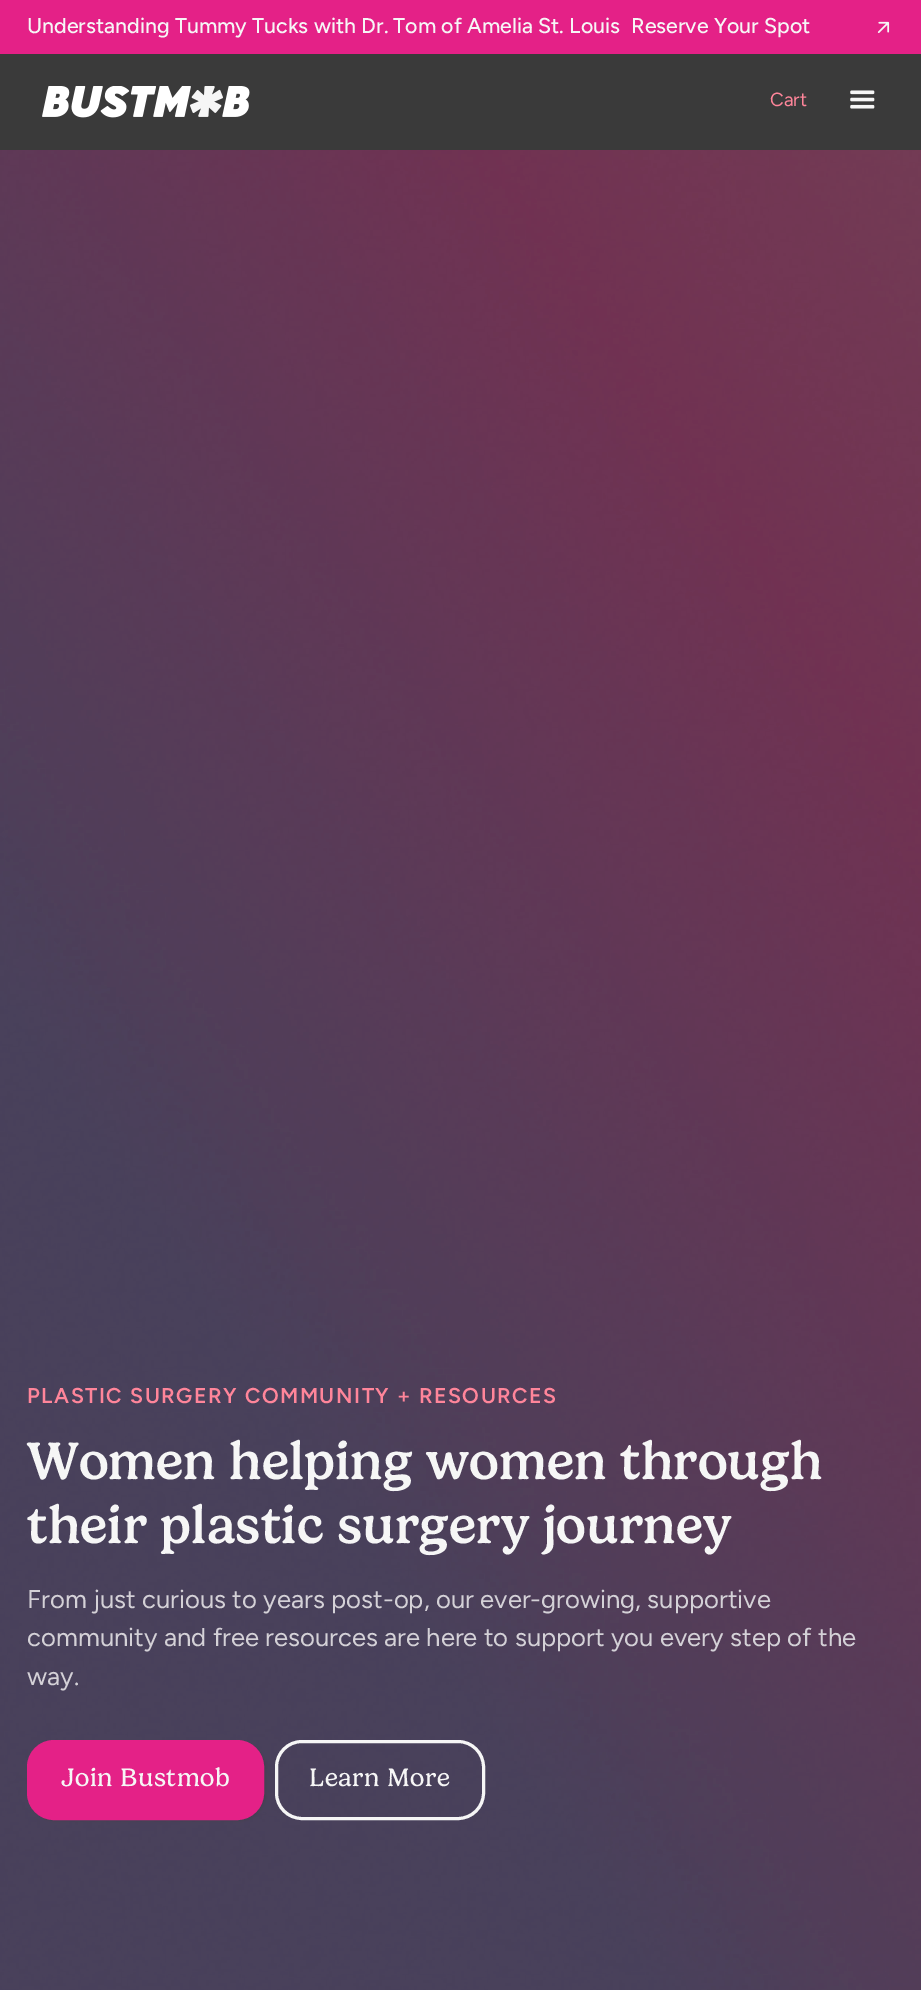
%!PS
<< /PageSize [921 1990] /PageUsesTransparency true >> setpagedevice
/alpha { dup .setfillconstantalpha .setstrokeconstantalpha } def
/roundrect { 5 dict begin { /r /h /w /y /x } { exch def } forall
  x r add y moveto x w add y 2 copy h add r arct x w add y h add x 1 index r arct
  x y h add x y r arct x y 2 copy exch w add exch r arct closepath end } def
/shadow { 12 dict begin { /a /b /q /h /w /y /x } { exch def } forall gsave /was 0 def
  9 -2 -9 { dup b mul 4 div /e exch def 1 sub .425 mul 2.718 exch exp 1 add a .99 .min exch div /now exch def
    1 1 now sub 1 was sub div sub alpha /was now def
    w h .min e 2 mul add 0 gt { x e sub y e sub w e 2 mul add h e 2 mul add
      q e add b .6 mul add w h .min 2 div e add .min 0 .max roundrect fill } if } for grestore end } def
/picture { 5 dict begin { /h /w /y /x /name } { exch def } forall
  gsave x y translate w h scale
  w h 8 [w 0 0 h 0 0] name (r) file false 3 colorimage grestore end } def
0 .pushpdf14devicefilter
0 1990 translate 1 -1 scale
4 setmiterlimit
0.227 setgray
0 0 921 1990 rectfill
0.894 0.129 0.529 setrgbcolor
0 0 921 54 rectfill
/Figtree-Medium [21.4 0 0 -21.4 0 0] selectfont
0.965 setgray
27 33 moveto (Understanding Tummy Tucks with Dr. Tom of Amelia St. Louis) show
631 33 moveto (Reserve Your Spot) show
(img1.rgb) 877 21 13 12 picture
(img2.rgb) 42 86 208 32 picture
/Figtree-Regular [19 0 0 -19 0 0] selectfont
1 0.522 0.604 setrgbcolor
770 106 moveto (Cart) show
(img3.rgb) 850 90 25 19 picture
(img4.rgb) 0 150 921 1840 picture
/Figtree-SemiBold [21.4 0 0 -21.4 0 0] selectfont
27 1403 moveto 1.5 0 (PLASTIC SURGERY COMMUNITY + RESOURCES) ashow
/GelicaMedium-Medium [53.5 0 0 -53.5 0 0] selectfont
0.965 setgray
27 1479 moveto (Women helping women through) show
27 1543 moveto (their plastic surgery journey) show
/Figtree-Regular [25.7 0 0 -25.7 0 0] selectfont
0.831 0.82 0.843 setrgbcolor
27 1608 moveto (From just curious to years post-op, our ever-growing, supportive) show
27 1646 moveto (community and free resources are here to support you every step of the) show
27 1685 moveto (way.) show
0.227 setgray
29 1742 237 79 27 2 0.32 shadow
0.894 0.129 0.529 setrgbcolor
28.5 1741.5 234 77 25.5 roundrect gsave fill grestore
3 setlinewidth
stroke
/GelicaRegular-Regular [25.7 0 0 -25.7 0 0] selectfont
0.965 setgray
61 1786 moveto 0.5 0 (Join Bustmob) ashow
276.5 1741.5 207 77 25.5 roundrect stroke
309 1786 moveto 0.5 0 (Learn More) ashow
.poppdf14devicefilter showpage
